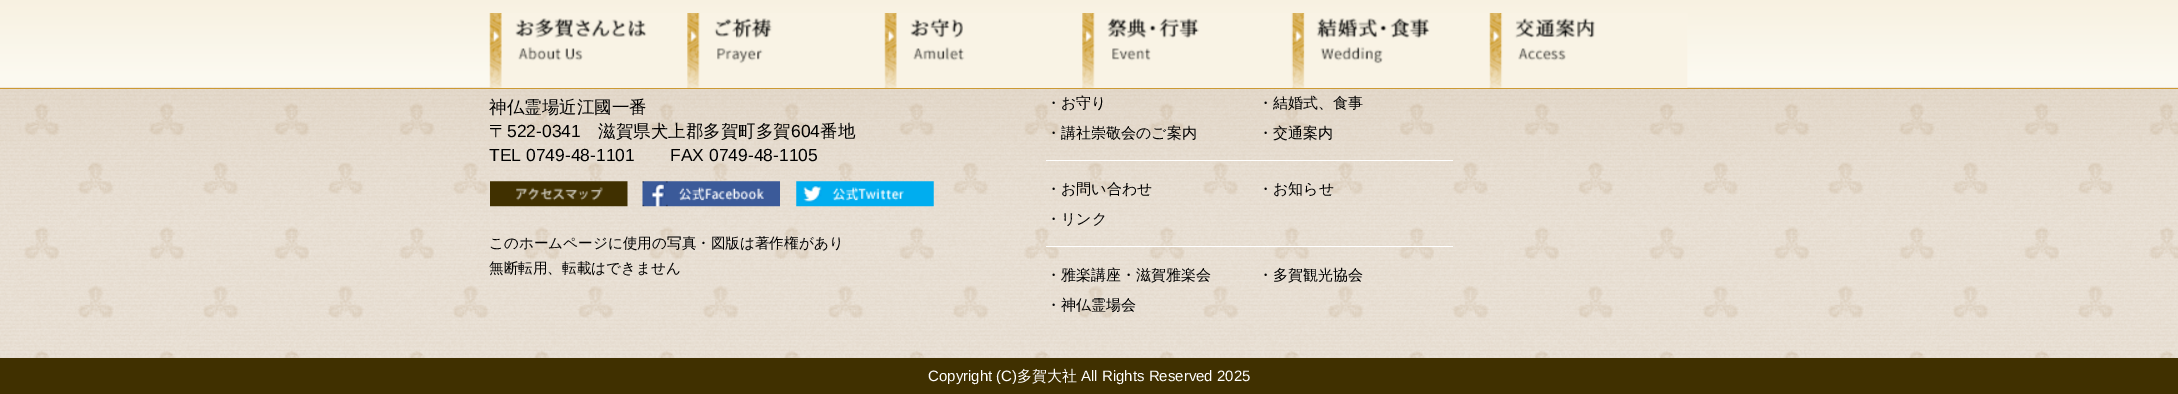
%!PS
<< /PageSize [2178 394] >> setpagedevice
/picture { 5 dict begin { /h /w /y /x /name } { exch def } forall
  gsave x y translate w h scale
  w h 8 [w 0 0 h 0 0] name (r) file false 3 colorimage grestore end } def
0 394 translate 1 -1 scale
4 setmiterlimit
1 setgray
0 0 2178 394 rectfill
(img8.rgb) 0 87 2178 271 picture
(img1.rgb) 0 0 2178 88 picture
0.8 0.6 0.2 setrgbcolor
0 88 2178 1 rectfill
(img2.rgb) 489 13 199 75 picture
(img3.rgb) 687 13 198 75 picture
(img4.rgb) 884 13 199 75 picture
(img5.rgb) 1082 13 211 75 picture
(img6.rgb) 1291 13 199 75 picture
(img7.rgb) 1489 13 199 75 picture
/WenQuanYiZenHei-Medium [17.5 0 0 -17.5 0 0] selectfont
0 setgray
489 113 moveto (神仏霊場近江國一番) show
489 137 moveto (〒) show
/LiberationSans-Regular [17.5 0 0 -17.5 0 0] selectfont
507 137 moveto (522-0341) show
/WenQuanYiZenHei-Medium [17.5 0 0 -17.5 0 0] selectfont
598 137 moveto (滋賀県犬上郡多賀町多賀) show
/LiberationSans-Regular [17.5 0 0 -17.5 0 0] selectfont
791 137 moveto (604) show
/WenQuanYiZenHei-Medium [17.5 0 0 -17.5 0 0] selectfont
820 137 moveto (番地) show
/LiberationSans-Regular [17.5 0 0 -17.5 0 0] selectfont
489 161 moveto (TEL 0749-48-1101) show
670 161 moveto (FAX 0749-48-1105) show
(img9.rgb) 490 181 138 26 picture
(img10.rgb) 642 181 138 26 picture
(img11.rgb) 796 181 138 26 picture
/WenQuanYiZenHei-Medium [14.6 0 0 -14.6 0 0] selectfont
489 248 moveto (このホームページに使用の写真・図版は著作権があり) show
489 273 moveto (無断転用、転載はできません) show
1 setgray
1046 160 407 1 rectfill
/WenQuanYiZenHei-Medium [15 0 0 -15 0 0] selectfont
0 setgray
1046 108 moveto (・お守り) show
1258 108 moveto (・結婚式、食事) show
1046 138 moveto (・講社崇敬会のご案内) show
1258 138 moveto (・交通案内) show
1 setgray
1046 246 407 1 rectfill
0 setgray
1046 194 moveto (・お問い合わせ) show
1258 194 moveto (・お知らせ) show
1046 224 moveto (・リンク) show
1046 280 moveto (・雅楽講座・滋賀雅楽会) show
1258 280 moveto (・多賀観光協会) show
1046 310 moveto (・神仏霊場会) show
0.251 0.188 0 setrgbcolor
0 358 2178 36 rectfill
/LiberationSans-Regular [15 0 0 -15 0 0] selectfont
1 setgray
928 381 moveto (Copyright \(C\)) show
/WenQuanYiZenHei-Medium [15 0 0 -15 0 0] selectfont
1017 381 moveto (多賀大社) show
/LiberationSans-Regular [15 0 0 -15 0 0] selectfont
1081 381 moveto (All Rights Reserved 2025) show
showpage
